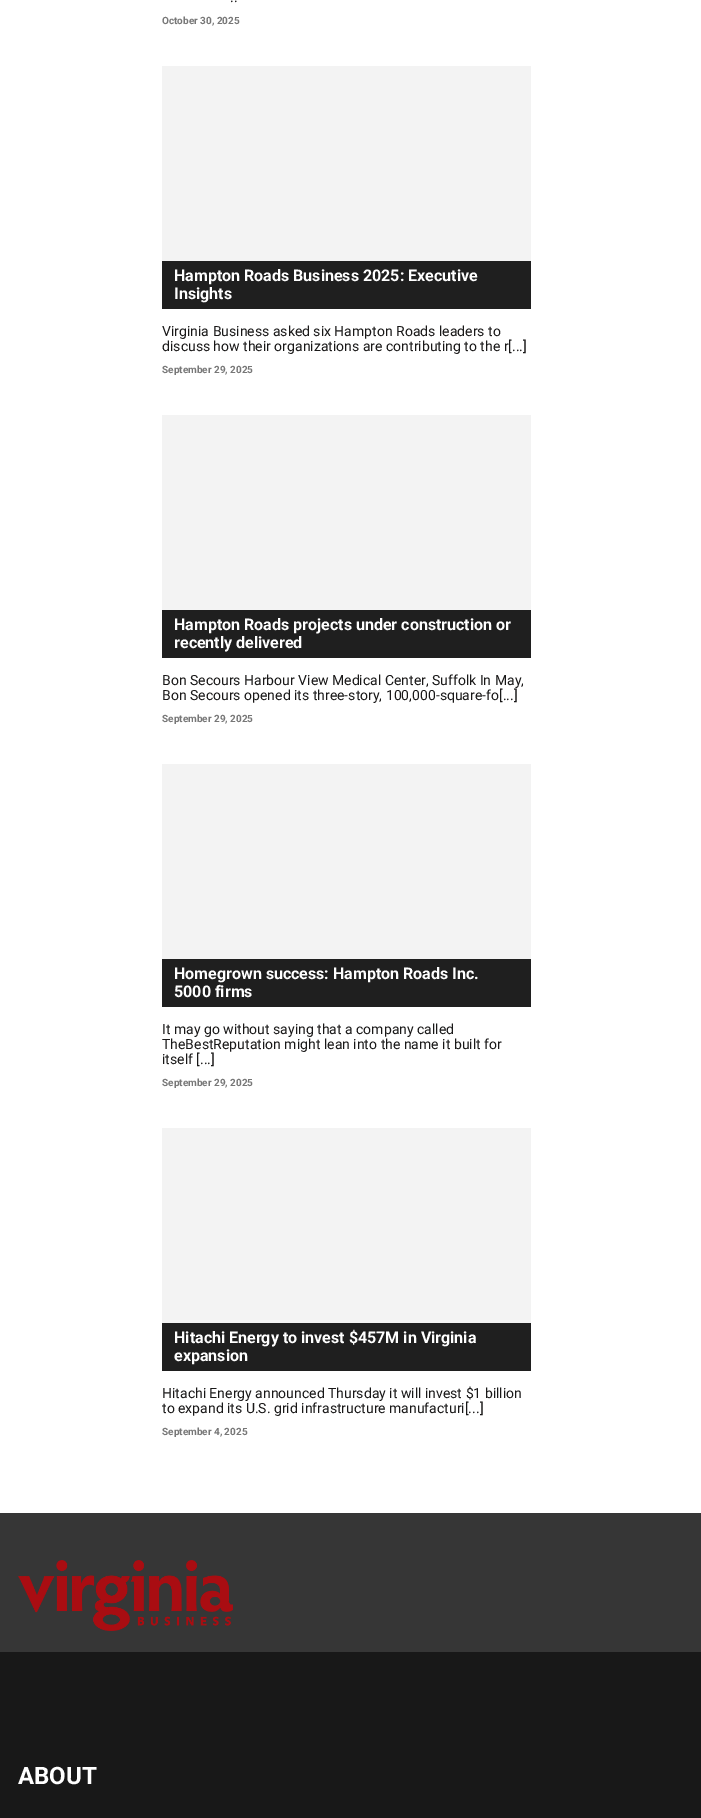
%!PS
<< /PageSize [701 1818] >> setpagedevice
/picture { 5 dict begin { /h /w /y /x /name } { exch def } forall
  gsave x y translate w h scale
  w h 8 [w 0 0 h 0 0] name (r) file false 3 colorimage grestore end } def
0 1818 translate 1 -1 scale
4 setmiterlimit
1 setgray
0 0 701 1818 rectfill
/Roboto-Regular [14 0 0 -14 0 0] selectfont
0.098 0.094 0.094 setrgbcolor
230 2 moveto (..) show
/Roboto-Bold [10 0 0 -10 0 0] selectfont
0.467 setgray
162 24 moveto (October 30, 2025) show
0.953 setgray
162 66 369 195 rectfill
0.122 setgray
162 261 369 48 rectfill
/Roboto-Bold [16 0 0 -16 0 0] selectfont
1 setgray
174 281 moveto (Hampton Roads Business 2025: Executive) show
174 299 moveto (Insights) show
/Roboto-Regular [14 0 0 -14 0 0] selectfont
0.098 0.094 0.094 setrgbcolor
162 336 moveto (Virginia Business asked six Hampton Roads leaders to) show
162 351 moveto (discuss how their organizations are contributing to the r[...]) show
/Roboto-Bold [10 0 0 -10 0 0] selectfont
0.467 setgray
162 373 moveto (September 29, 2025) show
0.953 setgray
162 415 369 195 rectfill
0.122 setgray
162 610 369 48 rectfill
/Roboto-Bold [16 0 0 -16 0 0] selectfont
1 setgray
174 630 moveto (Hampton Roads projects under construction or) show
174 648 moveto (recently delivered) show
/Roboto-Regular [14 0 0 -14 0 0] selectfont
0.098 0.094 0.094 setrgbcolor
162 685 moveto (Bon Secours Harbour View Medical Center, Suffolk In May,) show
162 700 moveto (Bon Secours opened its three-story, 100,000-square-fo[...]) show
/Roboto-Bold [10 0 0 -10 0 0] selectfont
0.467 setgray
162 722 moveto (September 29, 2025) show
0.953 setgray
162 764 369 195 rectfill
0.122 setgray
162 959 369 48 rectfill
/Roboto-Bold [16 0 0 -16 0 0] selectfont
1 setgray
174 979 moveto (Homegrown success: Hampton Roads Inc.) show
174 997 moveto (5000 firms) show
/Roboto-Regular [14 0 0 -14 0 0] selectfont
0.098 0.094 0.094 setrgbcolor
162 1034 moveto (It may go without saying that a company called) show
162 1049 moveto (TheBestReputation might lean into the name it built for) show
162 1064 moveto (itself [...]) show
/Roboto-Bold [10 0 0 -10 0 0] selectfont
0.467 setgray
162 1086 moveto (September 29, 2025) show
0.953 setgray
162 1128 369 195 rectfill
0.122 setgray
162 1323 369 48 rectfill
/Roboto-Bold [16 0 0 -16 0 0] selectfont
1 setgray
174 1343 moveto (Hitachi Energy to invest $457M in Virginia) show
174 1361 moveto (expansion) show
/Roboto-Regular [14 0 0 -14 0 0] selectfont
0.098 0.094 0.094 setrgbcolor
162 1398 moveto (Hitachi Energy announced Thursday it will invest $1 billion) show
162 1413 moveto (to expand its U.S. grid infrastructure manufacturi[...]) show
/Roboto-Bold [10 0 0 -10 0 0] selectfont
0.467 setgray
162 1435 moveto (September 4, 2025) show
0.212 setgray
0 1513 701 139 rectfill
(img1.rgb) 18 1560 215 71 picture
0.094 setgray
0 1652 701 166 rectfill
/Roboto-Bold [24 0 0 -24 0 0] selectfont
1 setgray
18 1784 moveto (ABOUT) show
showpage
